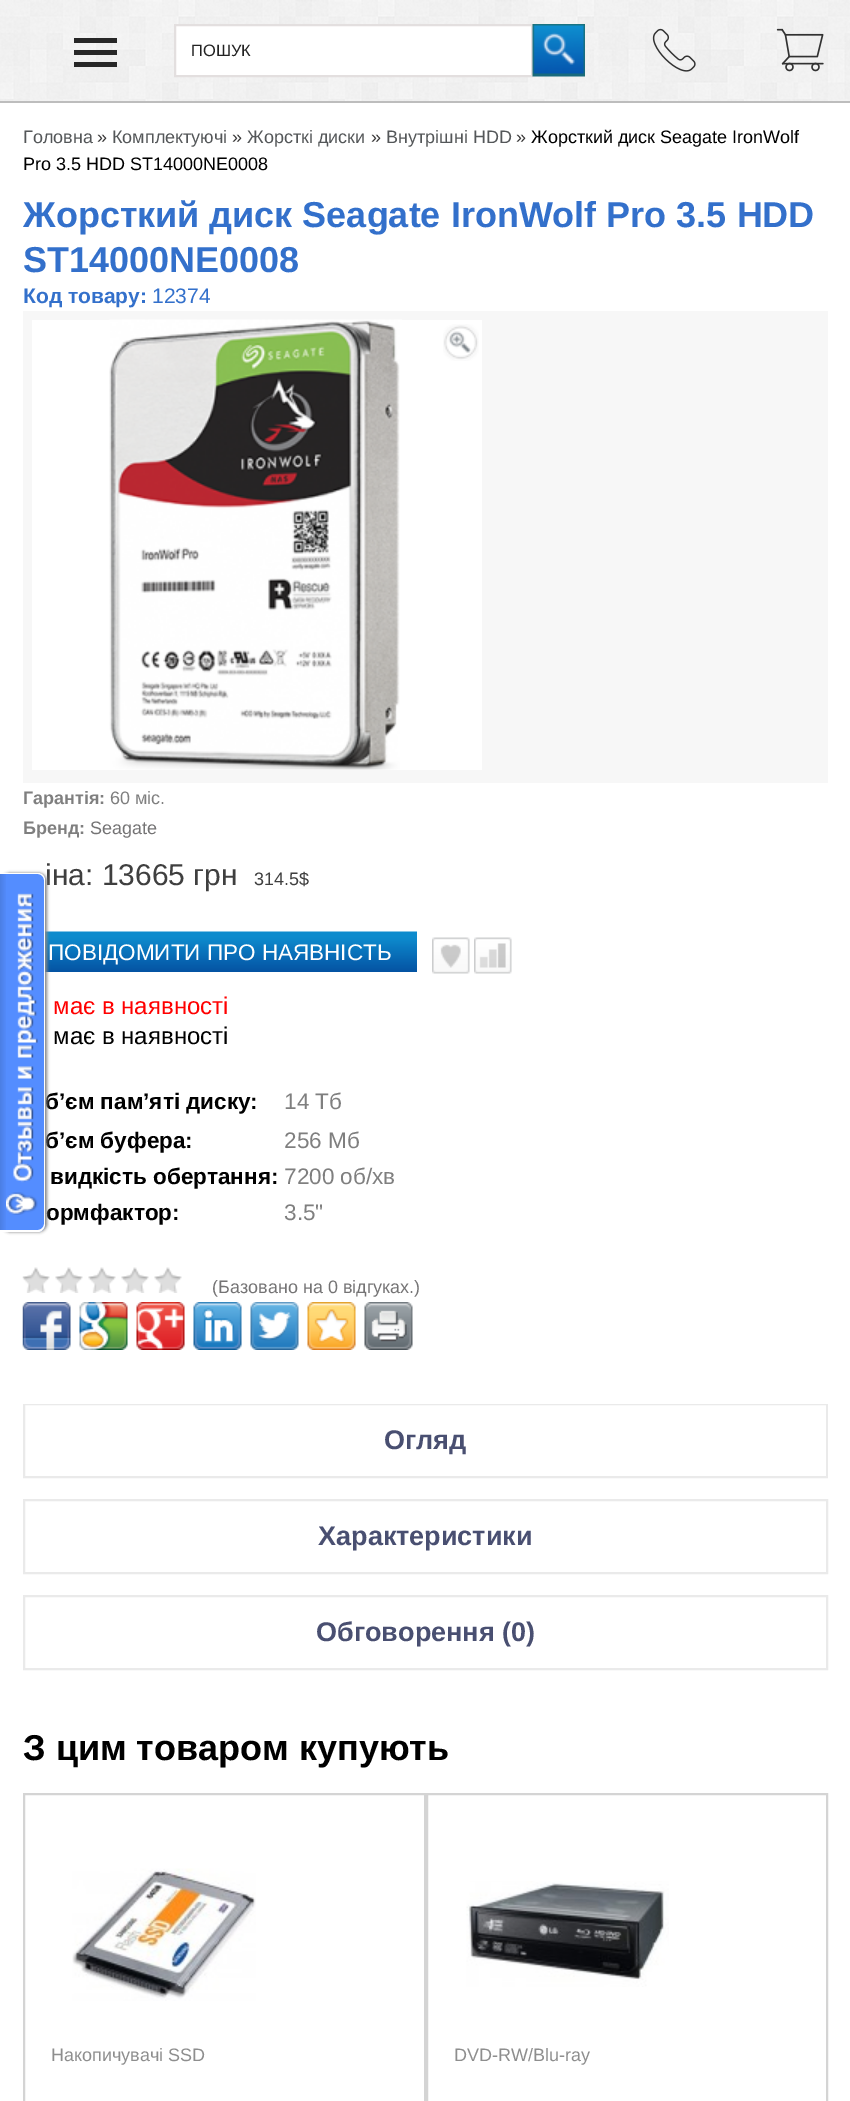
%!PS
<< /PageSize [850 2101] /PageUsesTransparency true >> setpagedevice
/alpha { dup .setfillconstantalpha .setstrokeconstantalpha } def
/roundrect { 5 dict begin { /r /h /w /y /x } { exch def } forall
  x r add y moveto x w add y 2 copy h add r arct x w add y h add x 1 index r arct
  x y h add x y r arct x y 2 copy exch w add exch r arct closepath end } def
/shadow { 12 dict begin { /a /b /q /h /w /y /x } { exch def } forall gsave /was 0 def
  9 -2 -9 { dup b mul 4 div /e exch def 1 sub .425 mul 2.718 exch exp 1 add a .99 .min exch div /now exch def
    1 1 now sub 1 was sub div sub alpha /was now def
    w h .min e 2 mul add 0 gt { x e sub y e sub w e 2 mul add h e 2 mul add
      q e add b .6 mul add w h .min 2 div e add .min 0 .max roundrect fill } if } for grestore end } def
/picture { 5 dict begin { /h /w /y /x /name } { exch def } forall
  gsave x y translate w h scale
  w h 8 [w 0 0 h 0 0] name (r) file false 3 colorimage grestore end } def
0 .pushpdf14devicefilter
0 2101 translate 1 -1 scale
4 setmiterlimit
1 setgray
0 0 850 2101 rectfill
(img1.rgb) 0 0 850 101 picture
0.741 setgray
0 101 850 2 rectfill
0.153 setgray
74 38 43 5 rectfill
74 50 43 5 rectfill
74 62 43 5 rectfill
1 setgray
newpath 175 25 moveto 532 25 lineto 532 76 lineto 175 76 lineto closepath gsave fill grestore
0.89 0.875 0.875 setrgbcolor
2 setlinewidth
stroke
/LiberationSans-Regular [16.5 0 0 -16.5 0 0] selectfont
0.133 setgray
191 56 moveto (ПОШУК) show
(img2.rgb) 532 24 53 53 picture
(img3.rgb) 652 28 44 44 picture
(img4.rgb) 776 28 48 44 picture
/LiberationSans-Regular [18 0 0 -18 0 0] selectfont
0.329 0.341 0.349 setrgbcolor
23 143 moveto (Головна) show
0.22 0.216 0.216 setrgbcolor
97 143 moveto (») show
0.329 0.341 0.349 setrgbcolor
112 143 moveto (Комплектуючі) show
0.22 0.216 0.216 setrgbcolor
232 143 moveto (») show
0.329 0.341 0.349 setrgbcolor
247 143 moveto (Жорсткі диски) show
0.22 0.216 0.216 setrgbcolor
371 143 moveto (») show
0.329 0.341 0.349 setrgbcolor
386 143 moveto (Внутрішні HDD) show
0.22 0.216 0.216 setrgbcolor
516 143 moveto (») show
0 setgray
531 143 moveto (Жорсткий диск Seagate IronWolf) show
23 170 moveto (Pro 3.5 HDD ST14000NE0008) show
/LiberationSans-Bold [36 0 0 -36 0 0] selectfont
0.2 0.439 0.796 setrgbcolor
23 227 moveto (Жорсткий диск Seagate IronWolf Pro 3.5 HDD) show
23 272 moveto (ST14000NE0008) show
/LiberationSans-Bold [21 0 0 -21 0 0] selectfont
23 303 moveto (Код товару:) show
/LiberationSans-Regular [21 0 0 -21 0 0] selectfont
152 303 moveto (12374) show
0.969 setgray
23 311 805 472 rectfill
(img5.rgb) 109 319 293 1 picture
1 setgray
32 320 450 450 rectfill
(img6.rgb) 109 320 291 450 picture
(img7.rgb) 443 324 36 37 picture
/LiberationSans-Bold [18 0 0 -18 0 0] selectfont
0.498 setgray
23 804 moveto (Гарантія:) show
/LiberationSans-Regular [18 0 0 -18 0 0] selectfont
110 804 moveto (60 міс.) show
/LiberationSans-Bold [18 0 0 -18 0 0] selectfont
23 834 moveto (Бренд:) show
/LiberationSans-Regular [18 0 0 -18 0 0] selectfont
0.459 0.455 0.459 setrgbcolor
90 834 moveto (Seagate) show
/LiberationSans-Regular [30 0 0 -30 0 0] selectfont
0.247 setgray
45 885 moveto (іна: 13665 грн) show
/LiberationSans-Regular [18 0 0 -18 0 0] selectfont
254 885 moveto (314.5$) show
(img8.rgb) 45 931 372 41 picture
/LiberationSans-Regular [22.5 0 0 -22.5 0 0] selectfont
1 setgray
48 960 moveto (ПОВІДОМИТИ ПРО НАЯВНІСТЬ) show
/LiberationSans-Regular [24 0 0 -24 0 0] selectfont
1 0 0 setrgbcolor
53 1014 moveto (має в наявності) show
0 setgray
53 1044 moveto (має в наявності) show
(img9.rgb) 432 937 38 37 picture
(img10.rgb) 474 937 38 37 picture
/LiberationSans-Bold [22.5 0 0 -22.5 0 0] selectfont
45 1109 moveto (б’єм пам’яті диску:) show
/LiberationSans-Regular [22.5 0 0 -22.5 0 0] selectfont
0.498 setgray
284 1109 moveto (14 Тб) show
/LiberationSans-Bold [22.5 0 0 -22.5 0 0] selectfont
0 setgray
45 1148 moveto (б’єм буфера:) show
/LiberationSans-Regular [22.5 0 0 -22.5 0 0] selectfont
0.498 setgray
284 1148 moveto (256 Мб) show
/LiberationSans-Bold [22.5 0 0 -22.5 0 0] selectfont
0 setgray
50 1184 moveto (видкість обертання:) show
/LiberationSans-Regular [22.5 0 0 -22.5 0 0] selectfont
0.498 setgray
284 1184 moveto (7200 об/хв) show
/LiberationSans-Bold [22.5 0 0 -22.5 0 0] selectfont
0 setgray
46 1220 moveto (ормфактор:) show
/LiberationSans-Regular [22.5 0 0 -22.5 0 0] selectfont
0.498 setgray
284 1220 moveto (3.5") show
(img11.rgb) 22 1267 160 26 picture
/LiberationSans-Regular [18 0 0 -18 0 0] selectfont
0.459 0.455 0.459 setrgbcolor
212 1293 moveto (\(Базовано на 0 відгуках.\)) show
(img12.rgb) 22 1302 49 48 picture
(img13.rgb) 79 1302 49 48 picture
(img14.rgb) 136 1302 49 48 picture
(img15.rgb) 193 1302 49 48 picture
(img16.rgb) 250 1302 49 48 picture
(img17.rgb) 307 1302 49 48 picture
(img18.rgb) 364 1302 49 48 picture
gsave
23 1404 805 96 rectclip
0.918 setgray
24 1404 803 73 rectstroke
grestore
/LiberationSans-Bold [27 0 0 -27 0 0] selectfont
0.286 0.31 0.443 setrgbcolor
384 1449 moveto (Огляд) show
0.918 setgray
24 1500 803 73 rectstroke
0.286 0.31 0.443 setrgbcolor
318 1545 moveto (Характеристики) show
0.918 setgray
24 1596 803 73 rectstroke
0.286 0.31 0.443 setrgbcolor
316 1641 moveto (Обговорення \(0\)) show
/LiberationSans-Bold [36 0 0 -36 0 0] selectfont
0 setgray
23 1760 moveto (З цим товаром купують) show
0.831 setgray
24 1794 401 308 rectstroke
(img19.rgb) 72 1868 184 133 picture
/LiberationSans-Regular [18 0 0 -18 0 0] selectfont
0.557 setgray
51 2061 moveto (Накопичувачі SSD) show
0.831 setgray
427 1794 400 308 rectstroke
(img20.rgb) 466 1881 203 106 picture
0.557 setgray
454 2061 moveto (DVD-RW/Blu-ray) show
0.533 setgray
2 873 45 359 8 1.5 1 shadow
0.329 0.553 1 setrgbcolor
newpath 0 873 moveto 37 873 lineto 41.5 873 45 876.5 45 881 curveto 45 1224 lineto 45 1228.5 41.5 1232 37 1232 curveto 0 1232 lineto closepath fill
(img21.rgb) 0 874 6 356 picture
1 setgray
newpath 0 873 moveto 38 873 lineto 42 873 45 876 45 880 curveto 45 1224 lineto 45 1228 42 1232 38 1232 curveto 0 1232 lineto closepath 0 874 moveto 38 874 lineto 41 874 44 877 44 880 curveto 44 1224 lineto 44 1227 41 1230 38 1230 curveto 0 1230 lineto closepath eofill
(img22.rgb) 6 893 32 322 picture
.poppdf14devicefilter showpage
